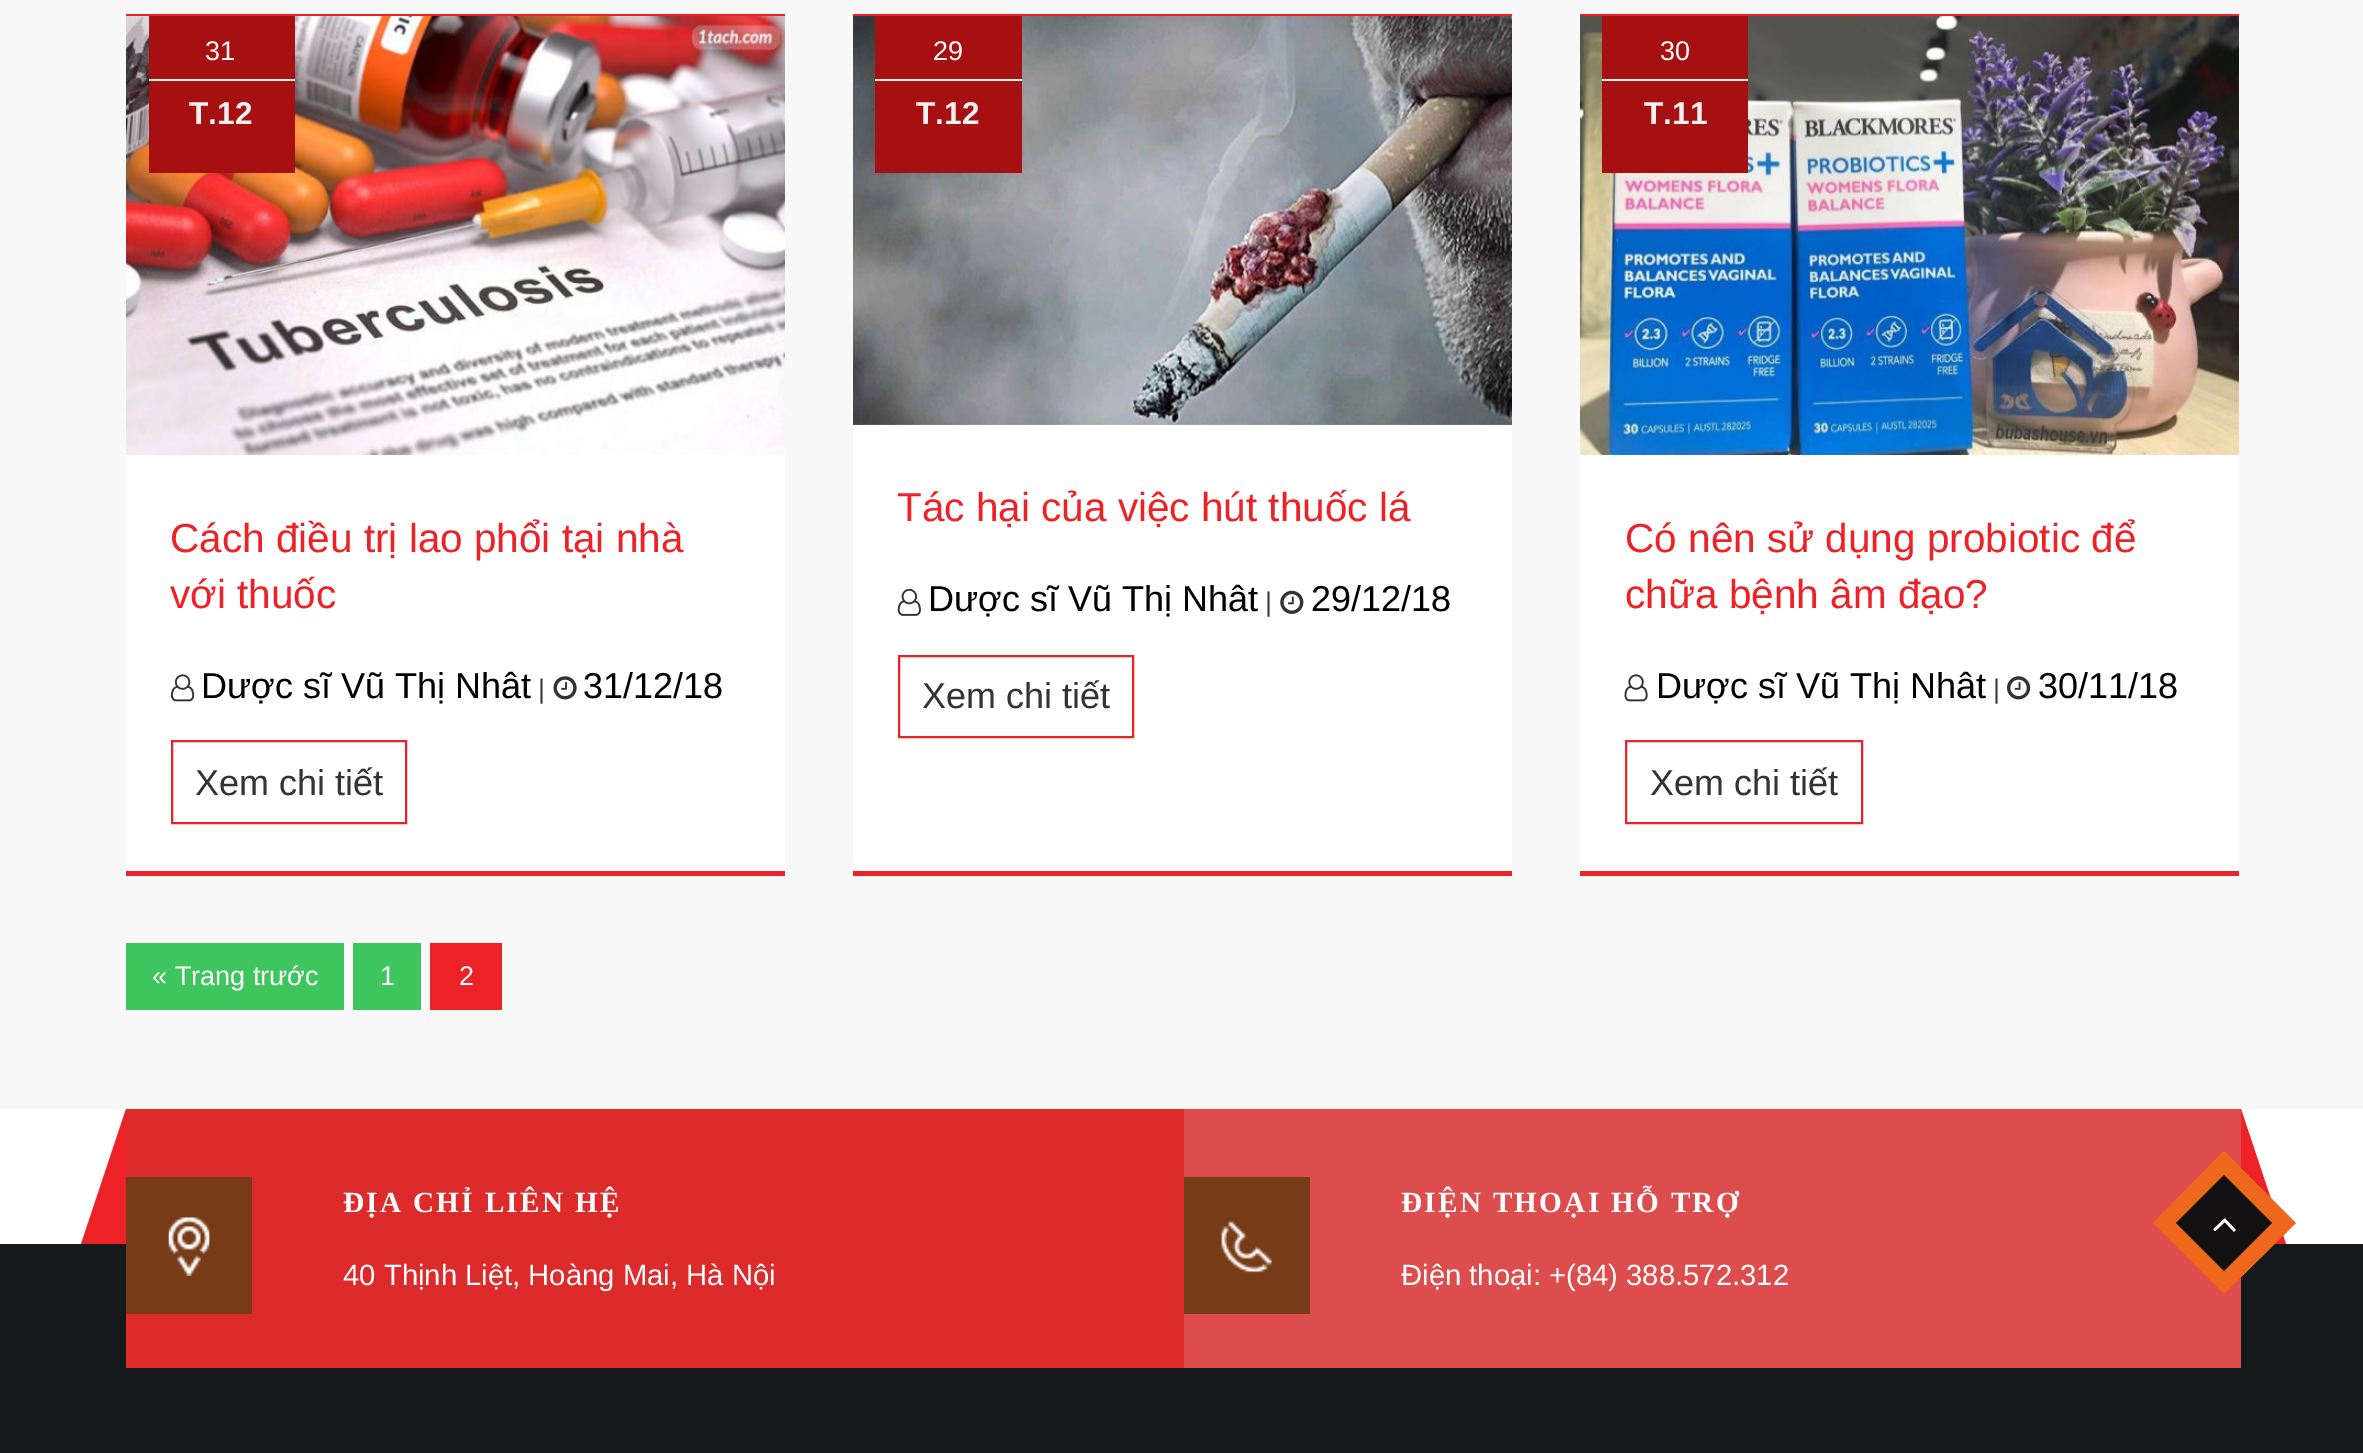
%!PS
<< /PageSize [2363 1453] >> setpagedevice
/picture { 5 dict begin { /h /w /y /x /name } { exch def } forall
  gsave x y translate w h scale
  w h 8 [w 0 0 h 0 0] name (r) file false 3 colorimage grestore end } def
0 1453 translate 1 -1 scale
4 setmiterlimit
1 setgray
0 0 2363 1453 rectfill
0.973 setgray
0 0 2363 1109 rectfill
1 setgray
126 455 659 416 rectfill
0.925 0.133 0.153 setrgbcolor
126 14 659 2 rectfill
126 871 659 5 rectfill
(img1.rgb) 126 16 659 439 picture
0.651 0.063 0.063 setrgbcolor
149 16 146 157 rectfill
/LiberationSans-Regular [27 0 0 -27 0 0] selectfont
1 setgray
205 60 moveto (31) show
0.933 setgray
149 79 146 2 rectfill
/LiberationSans-Bold [31.5 0 0 -31.5 0 0] selectfont
0.945 setgray
189 124 moveto (T.12) show
/LiberationSans-Regular [40.5 0 0 -40.5 0 0] selectfont
0.925 0.133 0.153 setrgbcolor
170 552 moveto (Cách điều trị lao phổi tại nhà) show
170 608 moveto (với thuốc) show
(img2.rgb) 171 674 24 28 picture
/LiberationSans-Regular [36 0 0 -36 0 0] selectfont
0 setgray
201 698 moveto (Dược sĩ Vũ Thị Nhât) show
/LiberationSans-Regular [27 0 0 -27 0 0] selectfont
0.2 setgray
538 698 moveto (|) show
(img3.rgb) 553 676 24 24 picture
/LiberationSans-Regular [36 0 0 -36 0 0] selectfont
0 setgray
583 698 moveto (31/12/18) show
0.925 0.133 0.153 setrgbcolor
2 setlinewidth
172 741 234 82 rectstroke
0.2 setgray
195 795 moveto (Xem chi tiết) show
1 setgray
853 424 659 447 rectfill
0.925 0.133 0.153 setrgbcolor
853 14 659 2 rectfill
853 871 659 5 rectfill
(img4.rgb) 853 16 659 409 picture
0.651 0.063 0.063 setrgbcolor
875 16 147 157 rectfill
/LiberationSans-Regular [27 0 0 -27 0 0] selectfont
1 setgray
933 60 moveto (29) show
0.933 setgray
875 79 147 2 rectfill
/LiberationSans-Bold [31.5 0 0 -31.5 0 0] selectfont
0.945 setgray
916 124 moveto (T.12) show
/LiberationSans-Regular [40.5 0 0 -40.5 0 0] selectfont
0.925 0.133 0.153 setrgbcolor
897 521 moveto (Tác hại của việc hút thuốc lá) show
(img5.rgb) 897 588 24 28 picture
/LiberationSans-Regular [36 0 0 -36 0 0] selectfont
0 setgray
928 611 moveto (Dược sĩ Vũ Thị Nhât) show
/LiberationSans-Regular [27 0 0 -27 0 0] selectfont
0.2 setgray
1265 611 moveto (|) show
(img6.rgb) 1280 590 24 24 picture
/LiberationSans-Regular [36 0 0 -36 0 0] selectfont
0 setgray
1311 611 moveto (29/12/18) show
0.925 0.133 0.153 setrgbcolor
899 656 234 81 rectstroke
0.2 setgray
922 708 moveto (Xem chi tiết) show
1 setgray
1580 455 659 416 rectfill
0.925 0.133 0.153 setrgbcolor
1580 14 659 2 rectfill
1580 871 659 5 rectfill
(img7.rgb) 1580 16 659 439 picture
0.651 0.063 0.063 setrgbcolor
1602 16 146 157 rectfill
/LiberationSans-Regular [27 0 0 -27 0 0] selectfont
1 setgray
1660 60 moveto (30) show
0.933 setgray
1602 79 146 2 rectfill
/LiberationSans-Bold [31.5 0 0 -31.5 0 0] selectfont
0.945 setgray
1644 124 moveto (T.11) show
/LiberationSans-Regular [40.5 0 0 -40.5 0 0] selectfont
0.925 0.133 0.153 setrgbcolor
1625 552 moveto (Có nên sử dụng probiotic để) show
1625 608 moveto (chữa bệnh âm đạo?) show
(img8.rgb) 1624 674 24 28 picture
/LiberationSans-Regular [36 0 0 -36 0 0] selectfont
0 setgray
1656 698 moveto (Dược sĩ Vũ Thị Nhât) show
/LiberationSans-Regular [27 0 0 -27 0 0] selectfont
0.2 setgray
1993 698 moveto (|) show
(img9.rgb) 2007 676 24 24 picture
/LiberationSans-Regular [36 0 0 -36 0 0] selectfont
0 setgray
2038 698 moveto (30/11/18) show
0.925 0.133 0.153 setrgbcolor
1626 741 236 82 rectstroke
0.2 setgray
1650 795 moveto (Xem chi tiết) show
0.243 0.773 0.369 setrgbcolor
126 943 218 67 rectfill
/LiberationSans-Regular [27 0 0 -27 0 0] selectfont
1 setgray
152 985 moveto (« Trang trước) show
0.243 0.773 0.369 setrgbcolor
353 943 68 67 rectfill
1 setgray
380 985 moveto (1) show
0.925 0.133 0.153 setrgbcolor
430 943 72 67 rectfill
1 setgray
459 985 moveto (2) show
0.082 0.098 0.11 setrgbcolor
0 1244 2363 209 rectfill
0.925 0.133 0.153 setrgbcolor
newpath 126 1244 moveto 81 1244 lineto 126 1109 lineto closepath fill
0.867 0.165 0.165 setrgbcolor
126 1109 1058 259 rectfill
0.471 0.231 0.09 setrgbcolor
126 1177 126 137 rectfill
(img10.rgb) 168 1217 42 59 picture
/LiberationSerif-Bold [29.25 0 0 -29.25 0 0] selectfont
1 setgray
343 1212 moveto 2.25 0 (ĐỊA CHỈ LIÊN HỆ) ashow
/LiberationSans-Regular [29.25 0 0 -29.25 0 0] selectfont
343 1285 moveto (40 Thịnh Liệt, Hoàng Mai, Hà Nội) show
0.867 0.302 0.302 setrgbcolor
1184 1109 1057 259 rectfill
0.471 0.231 0.09 setrgbcolor
1184 1177 126 137 rectfill
(img11.rgb) 1221 1221 51 52 picture
/LiberationSerif-Bold [29.25 0 0 -29.25 0 0] selectfont
1 setgray
1401 1212 moveto 2.25 0 (ĐIỆN THOẠI HỖ TRỢ) ashow
/LiberationSans-Regular [29.25 0 0 -29.25 0 0] selectfont
1401 1285 moveto (Điện thoại: +\(84\) 388.572.312) show
0.925 0.133 0.153 setrgbcolor
newpath 2286 1244 moveto 2241 1244 lineto 2241 1109 lineto closepath fill
0.933 0.404 0.114 setrgbcolor
newpath 2224 1151 moveto 2296 1223 lineto 2224 1294 lineto 2153 1223 lineto closepath fill
0.071 0.063 0.067 setrgbcolor
newpath 2224 1175 moveto 2272 1223 lineto 2224 1271 lineto 2176 1223 lineto closepath fill
(img12.rgb) 2213 1218 23 14 picture
showpage
